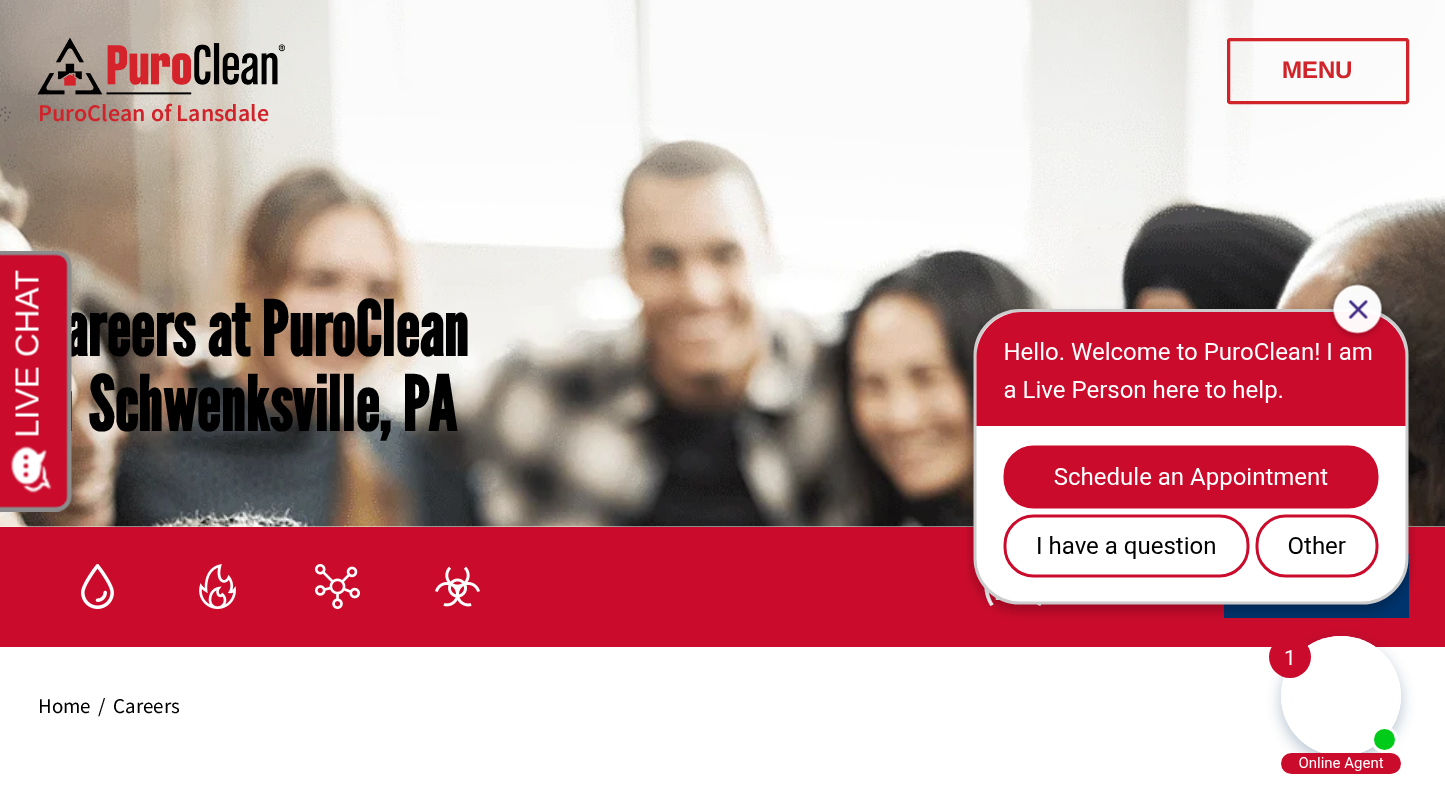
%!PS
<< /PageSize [1445 791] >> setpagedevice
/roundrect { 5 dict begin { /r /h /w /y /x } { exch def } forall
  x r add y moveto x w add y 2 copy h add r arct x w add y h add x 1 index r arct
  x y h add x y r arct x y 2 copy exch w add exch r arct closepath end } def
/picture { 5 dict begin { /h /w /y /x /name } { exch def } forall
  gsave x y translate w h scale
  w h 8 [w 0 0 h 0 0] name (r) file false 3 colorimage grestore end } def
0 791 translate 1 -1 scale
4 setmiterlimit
1 setgray
0 0 1445 791 rectfill
0.969 setgray
0 0 1445 527 rectfill
(img3.rgb) 0 0 1445 527 picture
0.816 0.137 0.165 setrgbcolor
3 setlinewidth
1228.5 39.5 179 63 1.5 roundrect stroke
/LiberationSans-Bold [24 0 0 -24 0 0] selectfont
1282 78 moveto (MENU) show
(img1.rgb) 37 37 248 58 picture
/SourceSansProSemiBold-SemiBold [24 0 0 -24 0 0] selectfont
38 121 moveto (PuroClean of Lansdale) show
/LeagueGothic-Bold [75 0 0 -75 0 0] selectfont
0 setgray
63 356 moveto (areers at PuroClean) show
(img2.rgb) 0 251 72 261 picture
88 431 moveto (Schwenksville, PA) show
0.792 0.043 0.173 setrgbcolor
0 527 1445 120 rectfill
0 0.204 0.427 setrgbcolor
1224 554 185 64 rectfill
(img4.rgb) 966 283 450 491 picture
(img5.rgb) 81 564 33 45 picture
(img6.rgb) 199 564 37 45 picture
(img7.rgb) 315 564 45 45 picture
(img8.rgb) 435 566 45 41 picture
/SourceSansPro-Regular [21 0 0 -21 0 0] selectfont
0 setgray
38 713 moveto (Home) show
98 713 moveto (/) show
113 713 moveto (Careers) show
showpage
